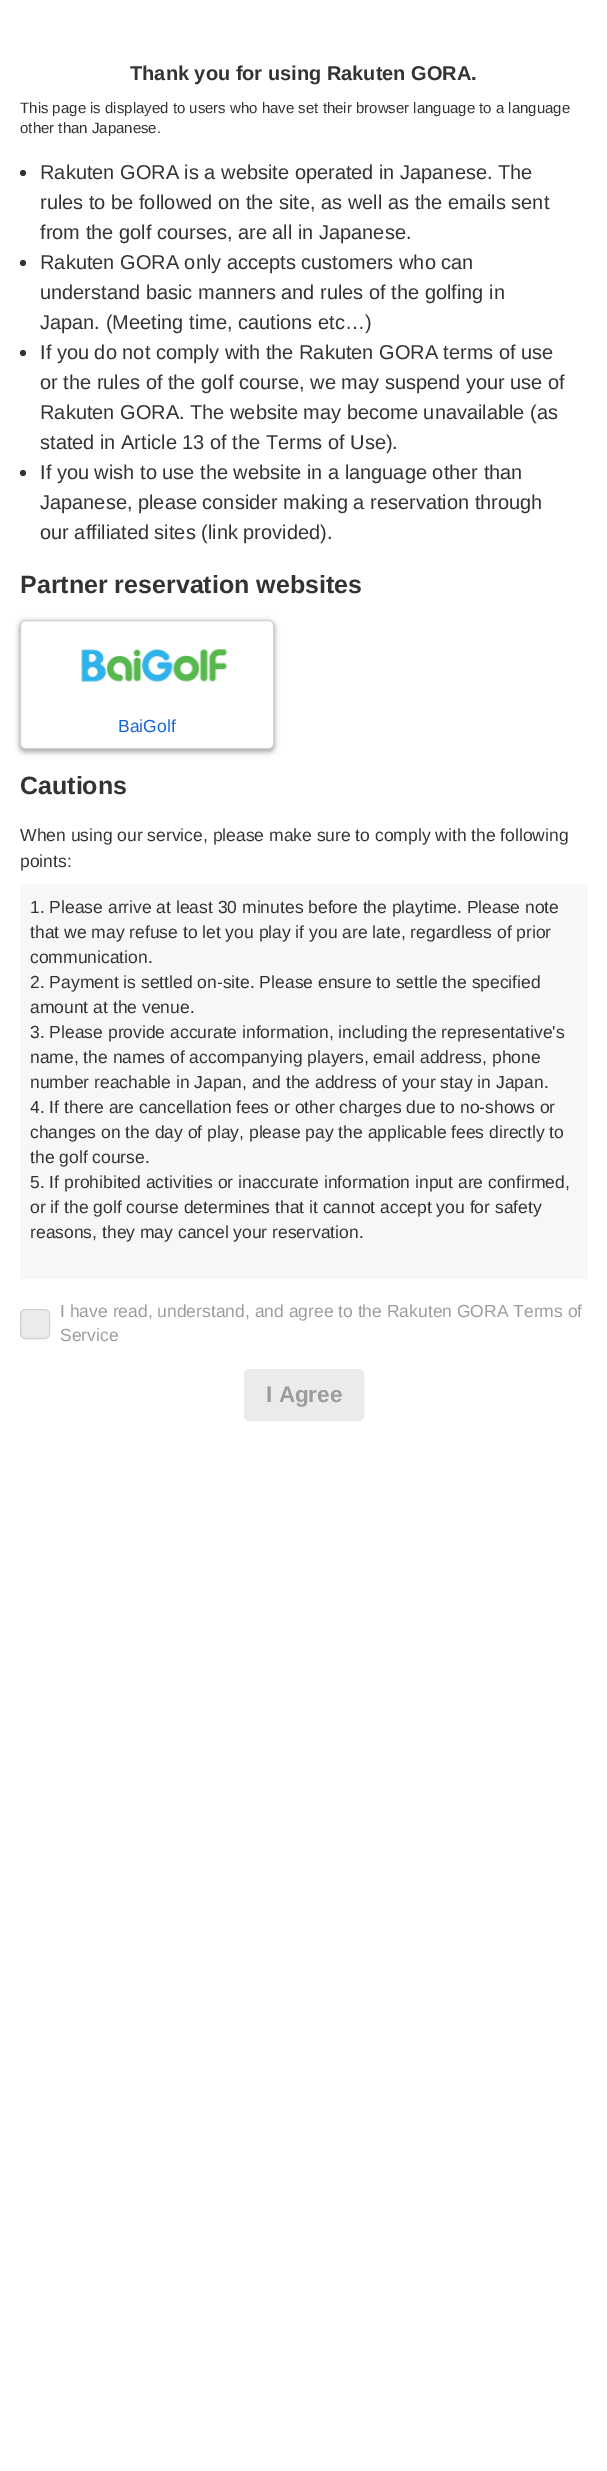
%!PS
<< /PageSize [607 2471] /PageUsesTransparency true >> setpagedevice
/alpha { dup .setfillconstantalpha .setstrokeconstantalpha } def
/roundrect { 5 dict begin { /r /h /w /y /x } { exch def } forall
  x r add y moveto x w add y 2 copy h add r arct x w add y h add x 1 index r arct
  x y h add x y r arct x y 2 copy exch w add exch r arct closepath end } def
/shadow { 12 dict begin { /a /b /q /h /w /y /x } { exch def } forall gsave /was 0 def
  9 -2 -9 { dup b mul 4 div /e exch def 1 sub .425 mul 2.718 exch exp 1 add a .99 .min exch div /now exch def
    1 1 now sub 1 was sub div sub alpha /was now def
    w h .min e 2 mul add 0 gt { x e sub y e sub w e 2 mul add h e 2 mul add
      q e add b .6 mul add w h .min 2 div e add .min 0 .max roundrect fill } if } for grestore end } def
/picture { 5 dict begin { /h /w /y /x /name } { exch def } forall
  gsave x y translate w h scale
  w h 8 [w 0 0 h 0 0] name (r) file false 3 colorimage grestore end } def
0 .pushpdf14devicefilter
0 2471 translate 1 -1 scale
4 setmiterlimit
1 setgray
0 0 607 2471 rectfill
/LiberationSans-Bold [20 0 0 -20 0 0] selectfont
0.2 setgray
130 80 moveto (Thank you for using Rakuten GORA.) show
/LiberationSans-Regular [15 0 0 -15 0 0] selectfont
20 113 moveto (This page is displayed to users who have set their browser language to a language) show
20 133 moveto (other than Japanese.) show
newpath 23 173 3 0 360 arc closepath fill
/LiberationSans-Regular [20 0 0 -20 0 0] selectfont
40 179 moveto (Rakuten GORA is a website operated in Japanese. The) show
40 209 moveto (rules to be followed on the site, as well as the emails sent) show
40 239 moveto (from the golf courses, are all in Japanese.) show
newpath 23 263 3 0 360 arc closepath fill
40 269 moveto (Rakuten GORA only accepts customers who can) show
40 299 moveto (understand basic manners and rules of the golfing in) show
40 329 moveto (Japan. \(Meeting time, cautions etc…\)) show
newpath 23 353 3 0 360 arc closepath fill
40 359 moveto (If you do not comply with the Rakuten GORA terms of use) show
40 389 moveto (or the rules of the golf course, we may suspend your use of) show
40 419 moveto (Rakuten GORA. The website may become unavailable \(as) show
40 449 moveto (stated in Article 13 of the Terms of Use\).) show
newpath 23 473 3 0 360 arc closepath fill
40 479 moveto (If you wish to use the website in a language other than) show
40 509 moveto (Japanese, please consider making a reservation through) show
40 539 moveto (our affiliated sites \(link provided\).) show
/LiberationSans-Bold [25 0 0 -25 0 0] selectfont
20 593 moveto (Partner reservation websites) show
gsave
newpath 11 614 moveto 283 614 lineto 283 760 lineto 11 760 lineto closepath 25 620 moveto 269 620 lineto 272 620 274 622 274 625 curveto 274 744 lineto 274 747 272 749 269 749 curveto 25 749 lineto 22 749 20 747 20 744 curveto 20 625 lineto 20 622 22 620 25 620 curveto closepath eoclip newpath
0 setgray
20 623 254 128 5 2.5 0.14 shadow
grestore
gsave
newpath 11 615 moveto 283 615 lineto 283 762 lineto 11 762 lineto closepath 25 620 moveto 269 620 lineto 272 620 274 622 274 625 curveto 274 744 lineto 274 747 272 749 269 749 curveto 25 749 lineto 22 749 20 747 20 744 curveto 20 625 lineto 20 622 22 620 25 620 curveto closepath eoclip newpath
0 setgray
20 624 254 129 5 2.5 0.12 shadow
grestore
gsave
newpath 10 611 moveto 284 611 lineto 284 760 lineto 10 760 lineto closepath 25 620 moveto 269 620 lineto 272 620 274 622 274 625 curveto 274 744 lineto 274 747 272 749 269 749 curveto 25 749 lineto 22 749 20 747 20 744 curveto 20 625 lineto 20 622 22 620 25 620 curveto closepath eoclip newpath
0 setgray
20 621 254 129 5 3 0.2 shadow
grestore
0.82 setgray
20.5 620.5 253 128 4.5 roundrect stroke
(img1.rgb) 81 649 147 33 picture
/LiberationSans-Regular [17.5 0 0 -17.5 0 0] selectfont
0.09 0.392 0.843 setrgbcolor
118 732 moveto (BaiGolf) show
/LiberationSans-Bold [25 0 0 -25 0 0] selectfont
0.2 setgray
20 794 moveto (Cautions) show
/LiberationSans-Regular [17.5 0 0 -17.5 0 0] selectfont
20 841 moveto (When using our service, please make sure to comply with the following) show
20 867 moveto (points:) show
0.969 setgray
20 884 568 395 rectfill
0.2 setgray
30 913 moveto (1. Please arrive at least 30 minutes before the playtime. Please note) show
30 938 moveto (that we may refuse to let you play if you are late, regardless of prior) show
30 963 moveto (communication.) show
30 988 moveto (2. Payment is settled on-site. Please ensure to settle the specified) show
30 1013 moveto (amount at the venue.) show
30 1038 moveto (3. Please provide accurate information, including the representative's) show
30 1063 moveto (name, the names of accompanying players, email address, phone) show
30 1088 moveto (number reachable in Japan, and the address of your stay in Japan.) show
30 1113 moveto (4. If there are cancellation fees or other charges due to no-shows or) show
30 1138 moveto (changes on the day of play, please pay the applicable fees directly to) show
30 1163 moveto (the golf course.) show
30 1188 moveto (5. If prohibited activities or inaccurate information input are confirmed,) show
30 1213 moveto (or if the golf course determines that it cannot accept you for safety) show
30 1238 moveto (reasons, they may cancel your reservation.) show
0.922 setgray
20.5 1309.5 29 29 4.5 roundrect gsave fill grestore
0.82 setgray
stroke
0.612 setgray
60 1317 moveto (I have read, understand, and agree to the Rakuten GORA Terms of) show
60 1341 moveto (Service) show
0.922 setgray
244.5 1369.5 119 51 4.5 roundrect gsave fill grestore
stroke
/LiberationSans-Bold [22.5 0 0 -22.5 0 0] selectfont
0.612 setgray
266 1402 moveto (I Agree) show
.poppdf14devicefilter showpage
